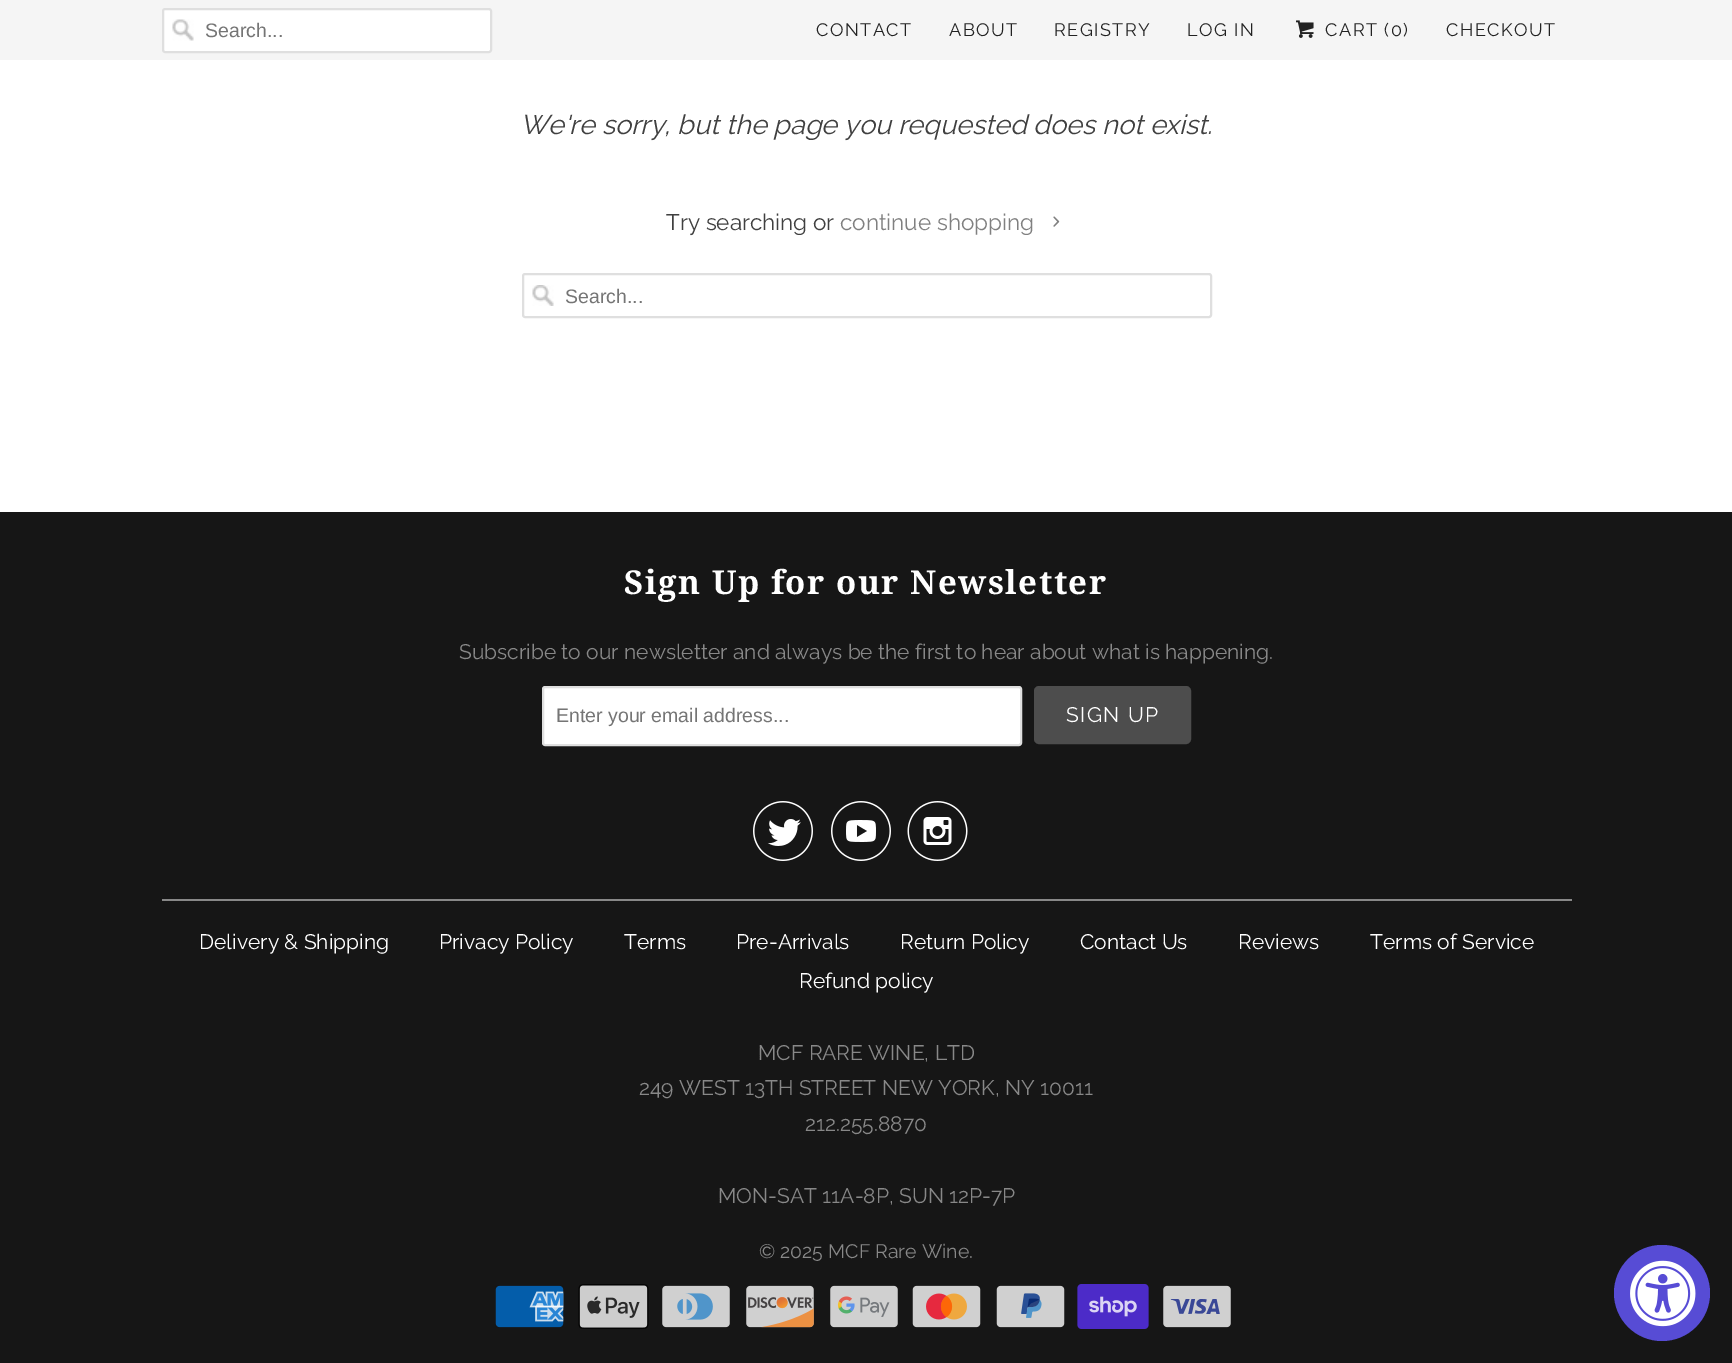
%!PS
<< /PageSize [1732 1363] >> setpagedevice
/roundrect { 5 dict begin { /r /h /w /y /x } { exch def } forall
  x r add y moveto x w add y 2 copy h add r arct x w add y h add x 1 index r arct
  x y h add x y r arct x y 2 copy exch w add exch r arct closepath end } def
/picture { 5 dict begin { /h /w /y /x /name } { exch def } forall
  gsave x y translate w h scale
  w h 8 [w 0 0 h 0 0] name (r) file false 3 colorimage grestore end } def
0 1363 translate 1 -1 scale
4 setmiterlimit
1 setgray
0 0 1732 1363 rectfill
0.961 setgray
0 0 1732 60 rectfill
1 setgray
162 8 330 45 3 roundrect fill
(img1.rgb) 172 19 22 22 picture
0.875 setgray
2 setlinewidth
163 9 328 43 2 roundrect stroke
/LiberationSans-Regular [19.5 0 0 -19.5 0 0] selectfont
0.459 setgray
205 37 moveto (Search...) show
/Raleway-Regular [18 0 0 -18 0 0] selectfont
0.133 setgray
816 36 moveto 1.5 0 (CONTACT) ashow
949 36 moveto 1.5 0 (ABOUT) ashow
1054 36 moveto 1.5 0 (REGISTRY) ashow
1187 36 moveto 1.5 0 (LOG IN) ashow
(img2.rgb) 1296 20 18 18 picture
1325 36 moveto 1.5 0 (CART \(0\)) ashow
1446 36 moveto 1.5 0 (CHECKOUT) ashow
/Raleway-Italic [27 0 0 -27 0 0] selectfont
0.251 setgray
520 134 moveto (We're sorry, but the page you requested does not exist.) show
/Raleway-Regular [22.5 0 0 -22.5 0 0] selectfont
666 230 moveto (Try searching or) show
0.502 setgray
840 230 moveto (continue shopping) show
(img3.rgb) 1053 216 7 11 picture
(img4.rgb) 532 285 22 21 picture
0.875 setgray
523 274 688 43 2 roundrect stroke
/LiberationSans-Regular [19.5 0 0 -19.5 0 0] selectfont
0.459 setgray
565 303 moveto (Search...) show
0.086 setgray
0 512 1732 851 rectfill
/DroidSerif-Bold [33 0 0 -33 0 0] selectfont
1 setgray
624 594 moveto 1.5 0 (Sign Up for our Newsletter) ashow
/Raleway-Regular [21 0 0 -21 0 0] selectfont
0.533 setgray
459 659 moveto (Subscribe to our newsletter and always be the first to hear about what is happening.) show
1 setgray
543 687 478 58 2 roundrect gsave fill grestore
0.875 setgray
stroke
/LiberationSans-Regular [19.5 0 0 -19.5 0 0] selectfont
0.459 setgray
556 722 moveto (Enter your email address...) show
0.302 setgray
1035 687 155 56 4 roundrect gsave fill grestore
stroke
/Raleway-Regular [21 0 0 -21 0 0] selectfont
1 setgray
1066 722 moveto 1.5 0 (SIGN UP) ashow
(img5.rgb) 753 801 60 60 picture
(img6.rgb) 831 801 60 60 picture
(img7.rgb) 907 801 61 60 picture
0.533 setgray
162 899 1410 2 rectfill
1 setgray
199 949 moveto (Delivery & Shipping) show
439 949 moveto (Privacy Policy) show
624 949 moveto (Terms) show
736 949 moveto (Pre-Arrivals) show
900 949 moveto (Return Policy) show
1080 949 moveto (Contact Us) show
1238 949 moveto (Reviews) show
1370 949 moveto (Terms of Service) show
799 988 moveto (Refund policy) show
0.533 setgray
758 1060 moveto (MCF RARE WINE, LTD) show
639 1095 moveto (249 WEST 13TH STREET NEW YORK, NY 10011) show
805 1131 moveto (212.255.8870) show
718 1203 moveto (MON-SAT 11A-8P, SUN 12P-7P) show
/Raleway-Regular [19.5 0 0 -19.5 0 0] selectfont
759 1258 moveto (© 2025 MCF Rare Wine.) show
(img8.rgb) 495 1285 69 43 picture
(img9.rgb) 578 1284 71 45 picture
(img10.rgb) 662 1285 68 43 picture
(img11.rgb) 746 1285 68 43 picture
(img12.rgb) 830 1285 68 43 picture
(img13.rgb) 912 1285 69 43 picture
(img14.rgb) 996 1285 69 43 picture
(img15.rgb) 1077 1284 72 45 picture
(img16.rgb) 1163 1285 68 43 picture
0.341 0.298 0.835 setrgbcolor
newpath 1662 1293 48 0 360 arc closepath fill
(img17.rgb) 1630 1260 66 67 picture
showpage
